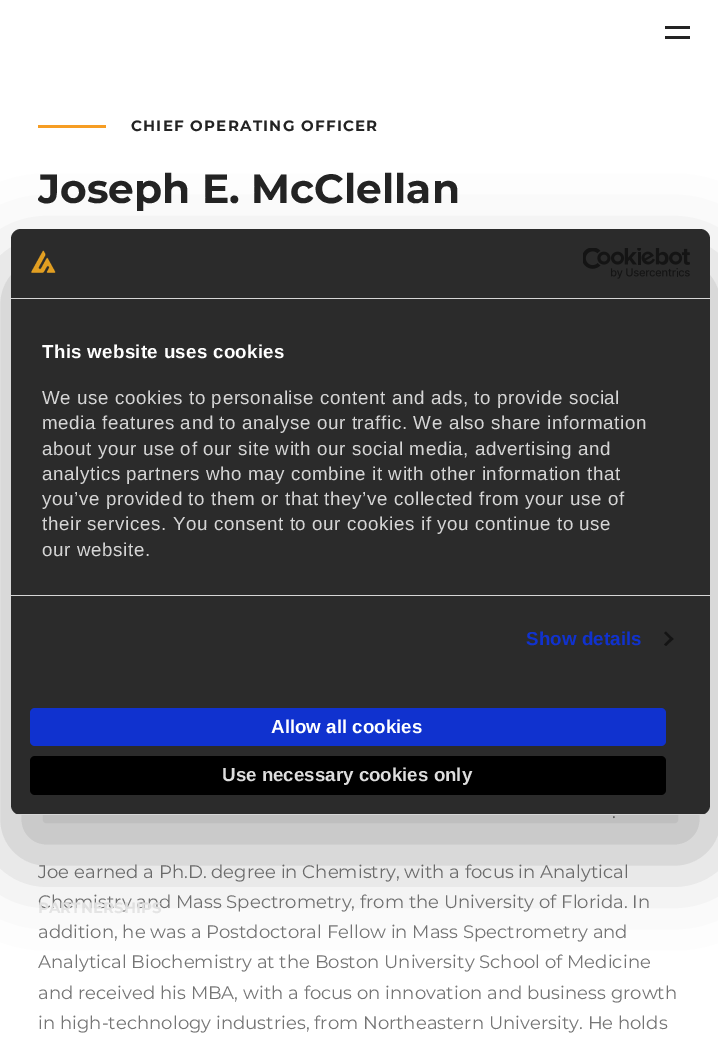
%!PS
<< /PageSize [718 1041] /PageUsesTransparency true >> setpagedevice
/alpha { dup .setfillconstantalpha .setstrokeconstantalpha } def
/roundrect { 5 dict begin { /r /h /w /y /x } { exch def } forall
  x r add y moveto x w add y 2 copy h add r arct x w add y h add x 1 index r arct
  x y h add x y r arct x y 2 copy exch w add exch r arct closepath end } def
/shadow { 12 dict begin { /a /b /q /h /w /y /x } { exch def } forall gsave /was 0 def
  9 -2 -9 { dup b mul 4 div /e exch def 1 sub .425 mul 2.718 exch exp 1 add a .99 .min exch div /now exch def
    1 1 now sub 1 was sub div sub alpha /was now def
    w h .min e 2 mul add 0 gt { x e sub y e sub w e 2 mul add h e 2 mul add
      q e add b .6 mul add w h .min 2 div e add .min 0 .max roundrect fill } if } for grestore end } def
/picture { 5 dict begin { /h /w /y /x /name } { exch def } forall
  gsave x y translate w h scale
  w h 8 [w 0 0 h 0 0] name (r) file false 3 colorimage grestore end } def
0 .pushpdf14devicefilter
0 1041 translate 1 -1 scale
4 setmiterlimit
1 setgray
0 0 718 1041 rectfill
0.137 setgray
665 26 25 3 rectfill
665 36 25 3 rectfill
0.965 0.616 0.137 setrgbcolor
38 125 68 3 rectfill
/Montserrat-Bold [15 0 0 -15 0 0] selectfont
0.137 setgray
131 131 moveto 1.25 0 (CHIEF OPERATING OFFICER) ashow
gsave
38 115 643 140 rectclip
/Montserrat-Bold [40.75 0 0 -40.75 0 0] selectfont
38 203 moveto (Joseph E. McClellan) show
grestore
/Montserrat-Regular [18.1 0 0 -18.1 0 0] selectfont
0.459 setgray
612 818 moveto (.) show
38 878 moveto (Joe earned a Ph.D. degree in Chemistry, with a focus in Analytical) show
38 908 moveto (Chemistry and Mass Spectrometry, from the University of Florida. In) show
38 938 moveto (addition, he was a Postdoctoral Fellow in Mass Spectrometry and) show
38 968 moveto (Analytical Biochemistry at the Boston University School of Medicine) show
38 999 moveto (and received his MBA, with a focus on innovation and business growth) show
38 1029 moveto (in high-technology industries, from Northeastern University. He holds) show
/Montserrat-Bold [15 0 0 -15 0 0] selectfont
0.914 setgray
38 913 moveto (PARTNERSHIPS) show
0 setgray
11 269 699 586 10 42.5 0.3 shadow
0.169 setgray
11 229 699 586 10 roundrect fill
0.839 setgray
11 298 699 1 rectfill
(img1.rgb) 31 250 25 23 picture
(img2.rgb) 583 248 107 31 picture
11 595 699 1 rectfill
/LiberationSans-Bold [18.75 0 0 -18.75 0 0] selectfont
1 setgray
42 358 moveto 0.3 0 (This website uses cookies) ashow
/LiberationSans-Regular [18.75 0 0 -18.75 0 0] selectfont
0.835 setgray
42 404 moveto 0.62 0 (We use cookies to personalise content and ads, to provide social) ashow
42 429 moveto 0.62 0 (media features and to analyse our traffic. We also share information) ashow
42 455 moveto 0.62 0 (about your use of our site with our social media, advertising and) ashow
42 480 moveto 0.62 0 (analytics partners who may combine it with other information that) ashow
42 505 moveto 0.62 0 (you’ve provided to them or that they’ve collected from your use of) ashow
42 530 moveto 0.62 0 (their services. You consent to our cookies if you continue to use) ashow
42 556 moveto 0.62 0 (our website.) ashow
/LiberationSans-Bold [18.75 0 0 -18.75 0 0] selectfont
0.063 0.196 0.812 setrgbcolor
526 645 moveto 0.1 0 (Show details) ashow
0.078 setgray
newpath 666 631.5 moveto 673.5 639 lineto 671.5 640.5 lineto 664 633 lineto closepath fill
newpath 671.5 637 moveto 673.5 639 lineto 666 646 lineto 664 644.5 lineto closepath fill
gsave
11 229 699 586 10 roundrect clip newpath
0.839 setgray
11 814 699 1 rectfill
grestore
0.063 0.196 0.812 setrgbcolor
30 708 636 38 5 roundrect fill
1 setgray
271 733 moveto (Allow all cookies) show
0 setgray
30 756 636 39 5 roundrect fill
0.867 setgray
222 781 moveto (Use necessary cookies only) show
.poppdf14devicefilter showpage
